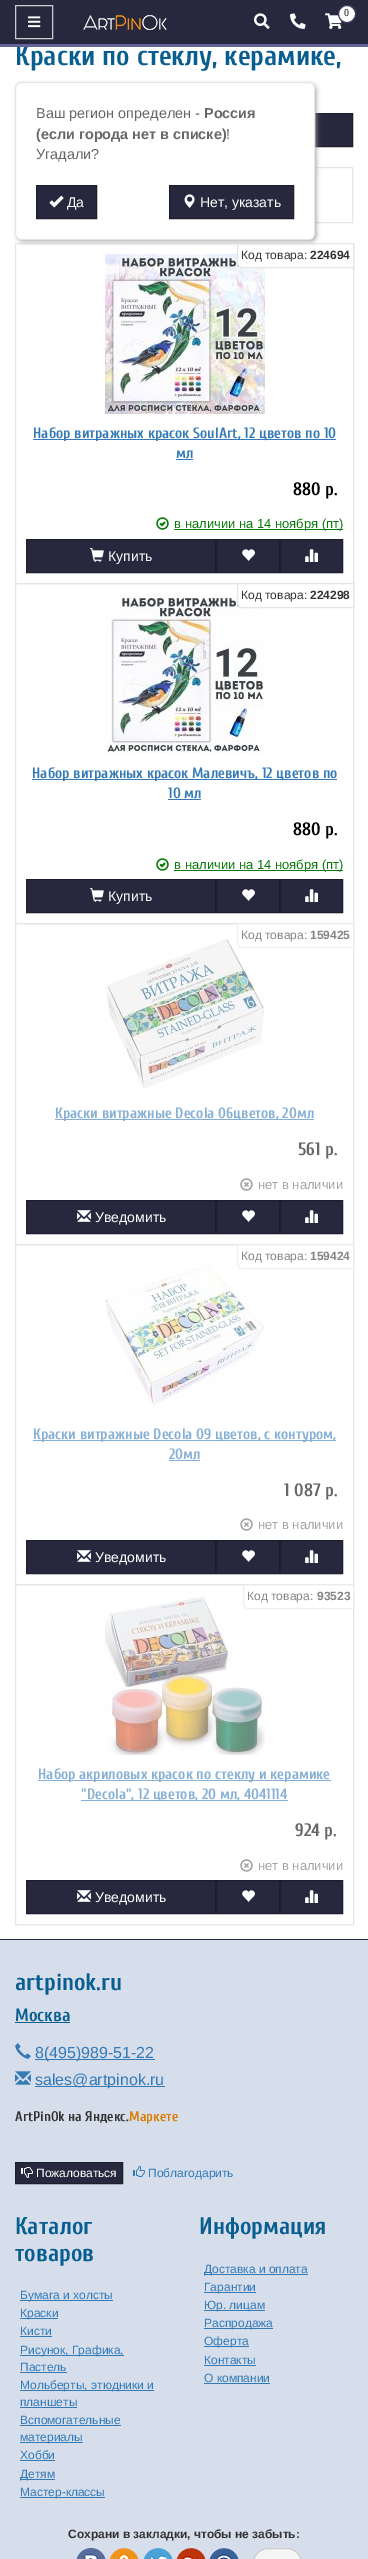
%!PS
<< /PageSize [368 2559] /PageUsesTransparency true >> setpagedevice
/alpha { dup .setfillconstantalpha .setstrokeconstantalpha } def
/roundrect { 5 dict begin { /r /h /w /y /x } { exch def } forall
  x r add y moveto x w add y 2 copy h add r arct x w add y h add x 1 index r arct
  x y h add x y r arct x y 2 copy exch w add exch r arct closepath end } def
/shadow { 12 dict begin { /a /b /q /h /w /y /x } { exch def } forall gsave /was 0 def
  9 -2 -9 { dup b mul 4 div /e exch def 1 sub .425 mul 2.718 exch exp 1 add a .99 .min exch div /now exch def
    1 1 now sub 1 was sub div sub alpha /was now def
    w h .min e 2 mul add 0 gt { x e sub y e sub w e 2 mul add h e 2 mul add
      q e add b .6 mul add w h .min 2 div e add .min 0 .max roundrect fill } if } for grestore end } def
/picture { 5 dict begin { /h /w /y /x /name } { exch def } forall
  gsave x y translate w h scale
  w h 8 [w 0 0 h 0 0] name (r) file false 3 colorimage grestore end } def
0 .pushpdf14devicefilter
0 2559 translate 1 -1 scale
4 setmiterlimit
1 setgray
0 0 368 2559 rectfill
0.153 0.157 0.239 setrgbcolor
0 0 368 44 rectfill
/Cuprum-Bold [28 0 0 -28 0 0] selectfont
0.035 0.369 0.565 setrgbcolor
15 65 moveto (Краски по стеклу, керамике,) show
0.388 0.396 0.604 setrgbcolor
0 44 368 3 rectfill
0.8 setgray
15.5 5.5 37 33 rectstroke
(img1.rgb) 28 16 13 12 picture
(img2.rgb) 254 13 16 16 picture
(img3.rgb) 290 13 16 16 picture
(img4.rgb) 325 13 17 16 picture
1 setgray
newpath 347 14 8.5 0 360 arc closepath gsave fill grestore
0.231 0.235 0.361 setrgbcolor
stroke
/Cuprum-Regular [10 0 0 -10 0 0] selectfont
0.153 0.157 0.239 setrgbcolor
344 16 moveto (0) show
(img5.rgb) 83 14 84 16 picture
315 114 37 32 rectfill
0.114 0.118 0.176 setrgbcolor
15.5 113.5 337 33 rectstroke
0.898 setgray
15.5 167.5 337 55 rectstroke
15.5 243.5 338 340 rectstroke
(img8.rgb) 105 254 160 160 picture
1 setgray
newpath 237.5 243.5 moveto 353.5 243.5 lineto 353.5 267.5 lineto 242 267.5 lineto 239.5 267.5 237.5 265.5 237.5 263 curveto closepath gsave fill grestore
0.898 setgray
stroke
0.6 setgray
18 85 298 156 5 2.5 1 shadow
1 setgray
15.5 82.5 299 157 5.5 roundrect gsave fill grestore
0.898 setgray
stroke
/LiberationSans-Regular [14.4 0 0 -14.4 0 0] selectfont
0.4 setgray
36 118 moveto (Ваш регион определен -) show
/LiberationSans-Bold [14.4 0 0 -14.4 0 0] selectfont
204 118 moveto (Россия) show
36 139 moveto (\(если города нет в списке\)) show
/LiberationSans-Regular [14.4 0 0 -14.4 0 0] selectfont
226 139 moveto (!) show
36 159 moveto (Угадали?) show
0.153 0.157 0.239 setrgbcolor
newpath 36.5 185.5 moveto 96.5 185.5 lineto 96.5 218.5 lineto 36.5 218.5 lineto closepath gsave fill grestore
0.114 0.118 0.176 setrgbcolor
stroke
(img6.rgb) 49 195 15 13 picture
/LiberationSans-Regular [14 0 0 -14 0 0] selectfont
1 setgray
67 207 moveto (Да) show
0.153 0.157 0.239 setrgbcolor
newpath 169.5 185.5 moveto 293.5 185.5 lineto 293.5 218.5 lineto 169.5 218.5 lineto closepath gsave fill grestore
0.114 0.118 0.176 setrgbcolor
stroke
(img7.rgb) 184 194 11 14 picture
1 setgray
200 207 moveto (Нет, указать) show
/LiberationSans-Regular [12 0 0 -12 0 0] selectfont
0.2 setgray
241 259 moveto (Код товара:) show
/LiberationSans-Bold [12 0 0 -12 0 0] selectfont
310 259 moveto (224694) show
0.2 0.478 0.718 setrgbcolor
33 439 303 1 rectfill
/Cuprum-Bold [15 0 0 -15 0 0] selectfont
33 438 moveto (Набор витражных красок SoulArt, 12 цветов по 10) show
176 458 moveto (мл) show
176 459 17 1 rectfill
/Cuprum-Bold [18 0 0 -18 0 0] selectfont
0 setgray
293 495 moveto (880 р.) show
(img9.rgb) 156 517 13 13 picture
0.043 0.475 0.043 setrgbcolor
174 529 169 1 rectfill
/LiberationSans-Regular [13 0 0 -13 0 0] selectfont
174 528 moveto (в наличии на 14 ноября \(пт\)) show
0.153 0.157 0.239 setrgbcolor
newpath 26.5 539.5 moveto 215.5 539.5 lineto 215.5 572.5 lineto 26.5 572.5 lineto closepath gsave fill grestore
0.114 0.118 0.176 setrgbcolor
stroke
(img10.rgb) 90 548 14 14 picture
/LiberationSans-Regular [14 0 0 -14 0 0] selectfont
1 setgray
108 561 moveto (Купить) show
0.153 0.157 0.239 setrgbcolor
newpath 216.5 539.5 moveto 279.5 539.5 lineto 279.5 572.5 lineto 216.5 572.5 lineto closepath gsave fill grestore
0.114 0.118 0.176 setrgbcolor
stroke
(img11.rgb) 242 549 13 12 picture
0.153 0.157 0.239 setrgbcolor
newpath 280.5 539.5 moveto 342.5 539.5 lineto 342.5 572.5 lineto 280.5 572.5 lineto closepath gsave fill grestore
0.114 0.118 0.176 setrgbcolor
stroke
(img12.rgb) 305 549 13 13 picture
0.898 setgray
15.5 583.5 338 340 rectstroke
(img13.rgb) 105 594 160 160 picture
1 setgray
newpath 237.5 583.5 moveto 353.5 583.5 lineto 353.5 607.5 lineto 242 607.5 lineto 239.5 607.5 237.5 605.5 237.5 603 curveto closepath gsave fill grestore
0.898 setgray
stroke
/LiberationSans-Regular [12 0 0 -12 0 0] selectfont
0.2 setgray
241 599 moveto (Код товара:) show
/LiberationSans-Bold [12 0 0 -12 0 0] selectfont
310 599 moveto (224298) show
0.2 0.478 0.718 setrgbcolor
32 779 305 1 rectfill
/Cuprum-Bold [15 0 0 -15 0 0] selectfont
32 778 moveto (Набор витражных красок Малевичъ, 12 цветов по) show
168 798 moveto (10 мл) show
168 799 33 1 rectfill
/Cuprum-Bold [18 0 0 -18 0 0] selectfont
0 setgray
293 835 moveto (880 р.) show
(img9.rgb) 156 858 13 13 picture
0.043 0.475 0.043 setrgbcolor
174 870 169 1 rectfill
/LiberationSans-Regular [13 0 0 -13 0 0] selectfont
174 869 moveto (в наличии на 14 ноября \(пт\)) show
0.153 0.157 0.239 setrgbcolor
newpath 26.5 879.5 moveto 215.5 879.5 lineto 215.5 912.5 lineto 26.5 912.5 lineto closepath gsave fill grestore
0.114 0.118 0.176 setrgbcolor
stroke
(img10.rgb) 90 888 14 14 picture
/LiberationSans-Regular [14 0 0 -14 0 0] selectfont
1 setgray
108 901 moveto (Купить) show
0.153 0.157 0.239 setrgbcolor
newpath 216.5 879.5 moveto 279.5 879.5 lineto 279.5 912.5 lineto 216.5 912.5 lineto closepath gsave fill grestore
0.114 0.118 0.176 setrgbcolor
stroke
(img11.rgb) 242 889 13 12 picture
0.153 0.157 0.239 setrgbcolor
newpath 280.5 879.5 moveto 342.5 879.5 lineto 342.5 912.5 lineto 280.5 912.5 lineto closepath gsave fill grestore
0.114 0.118 0.176 setrgbcolor
stroke
(img12.rgb) 305 889 13 13 picture
0.898 setgray
15.5 923.5 338 321 rectstroke
(img14.rgb) 106 937 159 152 picture
0.6 alpha
1 setgray
newpath 237 923 moveto 354 923 lineto 354 948 lineto 242 948 lineto 239 948 237 946 237 943 curveto closepath fill
0.898 setgray
newpath 237.5 923.5 moveto 353.5 923.5 lineto 353.5 947.5 lineto 242 947.5 lineto 239.5 947.5 237.5 945.5 237.5 943 curveto closepath stroke
/LiberationSans-Regular [12 0 0 -12 0 0] selectfont
1 alpha
0.522 setgray
241 939 moveto (Код товара:) show
/LiberationSans-Bold [12 0 0 -12 0 0] selectfont
310 939 moveto (159425) show
0.522 0.686 0.831 setrgbcolor
55 1119 259 1 rectfill
/Cuprum-Bold [15 0 0 -15 0 0] selectfont
55 1118 moveto (Краски витражные Decola 06цветов, 20мл) show
/Cuprum-Bold [18 0 0 -18 0 0] selectfont
0.4 setgray
298 1155 moveto (561 р.) show
(img15.rgb) 240 1178 13 13 picture
/LiberationSans-Regular [13 0 0 -13 0 0] selectfont
0.639 setgray
258 1189 moveto (нет в наличии) show
0.153 0.157 0.239 setrgbcolor
newpath 26.5 1200.5 moveto 215.5 1200.5 lineto 215.5 1233.5 lineto 26.5 1233.5 lineto closepath gsave fill grestore
0.114 0.118 0.176 setrgbcolor
stroke
(img16.rgb) 77 1210 14 12 picture
/LiberationSans-Regular [14 0 0 -14 0 0] selectfont
1 setgray
95 1222 moveto (Уведомить) show
0.153 0.157 0.239 setrgbcolor
newpath 216.5 1200.5 moveto 279.5 1200.5 lineto 279.5 1233.5 lineto 216.5 1233.5 lineto closepath gsave fill grestore
0.114 0.118 0.176 setrgbcolor
stroke
(img11.rgb) 242 1210 13 12 picture
0.153 0.157 0.239 setrgbcolor
newpath 280.5 1200.5 moveto 342.5 1200.5 lineto 342.5 1233.5 lineto 280.5 1233.5 lineto closepath gsave fill grestore
0.114 0.118 0.176 setrgbcolor
stroke
(img12.rgb) 305 1210 13 13 picture
0.898 setgray
15.5 1244.5 338 340 rectstroke
(img17.rgb) 105 1264 160 141 picture
0.6 alpha
1 setgray
newpath 237 1244 moveto 354 1244 lineto 354 1269 lineto 242 1269 lineto 239 1269 237 1267 237 1264 curveto closepath fill
0.898 setgray
newpath 237.5 1244.5 moveto 353.5 1244.5 lineto 353.5 1268.5 lineto 242 1268.5 lineto 239.5 1268.5 237.5 1266.5 237.5 1264 curveto closepath stroke
/LiberationSans-Regular [12 0 0 -12 0 0] selectfont
1 alpha
0.522 setgray
241 1260 moveto (Код товара:) show
/LiberationSans-Bold [12 0 0 -12 0 0] selectfont
310 1260 moveto (159424) show
0.522 0.686 0.831 setrgbcolor
33 1440 303 1 rectfill
/Cuprum-Bold [15 0 0 -15 0 0] selectfont
33 1439 moveto (Краски витражные Decola 09 цветов, с контуром,) show
169 1459 moveto (20мл) show
169 1460 31 1 rectfill
/Cuprum-Bold [18 0 0 -18 0 0] selectfont
0.4 setgray
284 1496 moveto (1 087 р.) show
(img15.rgb) 240 1518 13 13 picture
/LiberationSans-Regular [13 0 0 -13 0 0] selectfont
0.639 setgray
258 1529 moveto (нет в наличии) show
0.153 0.157 0.239 setrgbcolor
newpath 26.5 1540.5 moveto 215.5 1540.5 lineto 215.5 1573.5 lineto 26.5 1573.5 lineto closepath gsave fill grestore
0.114 0.118 0.176 setrgbcolor
stroke
(img16.rgb) 77 1550 14 12 picture
/LiberationSans-Regular [14 0 0 -14 0 0] selectfont
1 setgray
95 1562 moveto (Уведомить) show
0.153 0.157 0.239 setrgbcolor
newpath 216.5 1540.5 moveto 279.5 1540.5 lineto 279.5 1573.5 lineto 216.5 1573.5 lineto closepath gsave fill grestore
0.114 0.118 0.176 setrgbcolor
stroke
(img11.rgb) 242 1550 13 12 picture
0.153 0.157 0.239 setrgbcolor
newpath 280.5 1540.5 moveto 342.5 1540.5 lineto 342.5 1573.5 lineto 280.5 1573.5 lineto closepath gsave fill grestore
0.114 0.118 0.176 setrgbcolor
stroke
(img12.rgb) 305 1550 13 13 picture
0.898 setgray
15.5 1584.5 338 340 rectstroke
(img18.rgb) 105 1596 160 159 picture
0.6 alpha
1 setgray
newpath 243 1584 moveto 354 1584 lineto 354 1609 lineto 248 1609 lineto 245 1609 243 1607 243 1604 curveto closepath fill
0.898 setgray
newpath 243.5 1584.5 moveto 353.5 1584.5 lineto 353.5 1608.5 lineto 248 1608.5 lineto 245.5 1608.5 243.5 1606.5 243.5 1604 curveto closepath stroke
/LiberationSans-Regular [12 0 0 -12 0 0] selectfont
1 alpha
0.522 setgray
247 1600 moveto (Код товара:) show
/LiberationSans-Bold [12 0 0 -12 0 0] selectfont
317 1600 moveto (93523) show
0.522 0.686 0.831 setrgbcolor
38 1780 293 1 rectfill
/Cuprum-Bold [15 0 0 -15 0 0] selectfont
38 1779 moveto (Набор акриловых красок по стеклу и керамике) show
81 1800 207 1 rectfill
81 1799 moveto ("Decola", 12 цветов, 20 мл, 4041114) show
/Cuprum-Bold [18 0 0 -18 0 0] selectfont
0.4 setgray
295 1836 moveto (924 р.) show
(img15.rgb) 240 1859 13 13 picture
/LiberationSans-Regular [13 0 0 -13 0 0] selectfont
0.639 setgray
258 1870 moveto (нет в наличии) show
0.153 0.157 0.239 setrgbcolor
newpath 26.5 1880.5 moveto 215.5 1880.5 lineto 215.5 1913.5 lineto 26.5 1913.5 lineto closepath gsave fill grestore
0.114 0.118 0.176 setrgbcolor
stroke
(img16.rgb) 77 1890 14 12 picture
/LiberationSans-Regular [14 0 0 -14 0 0] selectfont
1 setgray
95 1902 moveto (Уведомить) show
0.153 0.157 0.239 setrgbcolor
newpath 216.5 1880.5 moveto 279.5 1880.5 lineto 279.5 1913.5 lineto 216.5 1913.5 lineto closepath gsave fill grestore
0.114 0.118 0.176 setrgbcolor
stroke
(img11.rgb) 242 1890 13 12 picture
0.153 0.157 0.239 setrgbcolor
newpath 280.5 1880.5 moveto 342.5 1880.5 lineto 342.5 1913.5 lineto 280.5 1913.5 lineto closepath gsave fill grestore
0.114 0.118 0.176 setrgbcolor
stroke
(img12.rgb) 305 1890 13 13 picture
0.839 0.871 0.925 setrgbcolor
0 1940 368 619 rectfill
0.153 0.157 0.239 setrgbcolor
0 1939 368 1 rectfill
/Cuprum-Bold [24 0 0 -24 0 0] selectfont
0.035 0.369 0.565 setrgbcolor
15 1990 moveto (artpinok.ru) show
/Cuprum-Bold [18 0 0 -18 0 0] selectfont
15 2021 moveto (Москва) show
15 2022 55 1 rectfill
(img19.rgb) 15 2043 16 16 picture
0.2 0.478 0.718 setrgbcolor
35 2059 120 1 rectfill
/LiberationSans-Regular [16 0 0 -16 0 0] selectfont
35 2058 moveto (8\(495\)989-51-22) show
(img20.rgb) 15 2071 16 14 picture
35 2086 130 1 rectfill
35 2085 moveto (sales@artpinok.ru) show
/Cuprum-Bold [14 0 0 -14 0 0] selectfont
0.2 setgray
15 2121 moveto (ArtPinOk на Яндекс.) show
0.863 0.486 0 setrgbcolor
129 2121 moveto (Маркете) show
0.153 0.157 0.239 setrgbcolor
newpath 15.5 2162.5 moveto 122.5 2162.5 lineto 122.5 2183.5 lineto 15.5 2183.5 lineto closepath gsave fill grestore
0.114 0.118 0.176 setrgbcolor
stroke
(img21.rgb) 21 2167 12 11 picture
/LiberationSans-Regular [12 0 0 -12 0 0] selectfont
1 setgray
36 2177 moveto (Пожаловаться) show
(img22.rgb) 133 2166 12 11 picture
0.2 0.478 0.718 setrgbcolor
148 2177 moveto (Поблагодарить) show
/Cuprum-Bold [24 0 0 -24 0 0] selectfont
0.035 0.369 0.565 setrgbcolor
15 2234 moveto (Каталог) show
15 2261 moveto (товаров) show
0.2 0.478 0.718 setrgbcolor
20 2300 93 1 rectfill
/LiberationSans-Regular [12 0 0 -12 0 0] selectfont
20 2299 moveto (Бумага и холсты) show
20 2318 38 1 rectfill
20 2317 moveto (Краски) show
20 2335 moveto (Кисти) show
20 2336 32 1 rectfill
20 2355 104 1 rectfill
20 2354 moveto (Рисунок, Графика,) show
20 2371 moveto (Пастель) show
20 2372 47 1 rectfill
20 2390 134 1 rectfill
20 2389 moveto (Мольберты, этюдники и) show
20 2406 moveto (планшеты) show
20 2407 57 1 rectfill
20 2424 moveto (Вспомогательные) show
20 2425 101 1 rectfill
20 2442 63 1 rectfill
20 2441 moveto (материалы) show
20 2459 moveto (Хобби) show
20 2460 35 1 rectfill
20 2479 35 1 rectfill
20 2478 moveto (Детям) show
20 2497 85 1 rectfill
20 2496 moveto (Мастер-классы) show
/Cuprum-Bold [24 0 0 -24 0 0] selectfont
0.035 0.369 0.565 setrgbcolor
199 2234 moveto (Информация) show
0.2 0.478 0.718 setrgbcolor
204 2274 104 1 rectfill
/LiberationSans-Regular [12 0 0 -12 0 0] selectfont
204 2273 moveto (Доставка и оплата) show
204 2292 52 1 rectfill
204 2291 moveto (Гарантии) show
204 2310 61 1 rectfill
204 2309 moveto (Юр. лицам) show
204 2328 69 1 rectfill
204 2327 moveto (Распродажа) show
204 2346 45 1 rectfill
204 2345 moveto (Оферта) show
204 2364 moveto (Контакты) show
204 2365 52 1 rectfill
204 2382 moveto (О компании) show
204 2383 66 1 rectfill
/LiberationSans-Bold [12 0 0 -12 0 0] selectfont
0.2 setgray
68 2538 moveto (Сохрани в закладки, чтобы не забыть:) show
(img23.rgb) 76 2548 30 11 picture
(img24.rgb) 109 2548 30 11 picture
(img25.rgb) 143 2548 30 11 picture
(img26.rgb) 176 2548 30 11 picture
(img27.rgb) 209 2548 30 11 picture
0.961 setgray
253.5 2548.5 48 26 14.5 roundrect gsave fill grestore
0.8 setgray
stroke
.poppdf14devicefilter showpage
